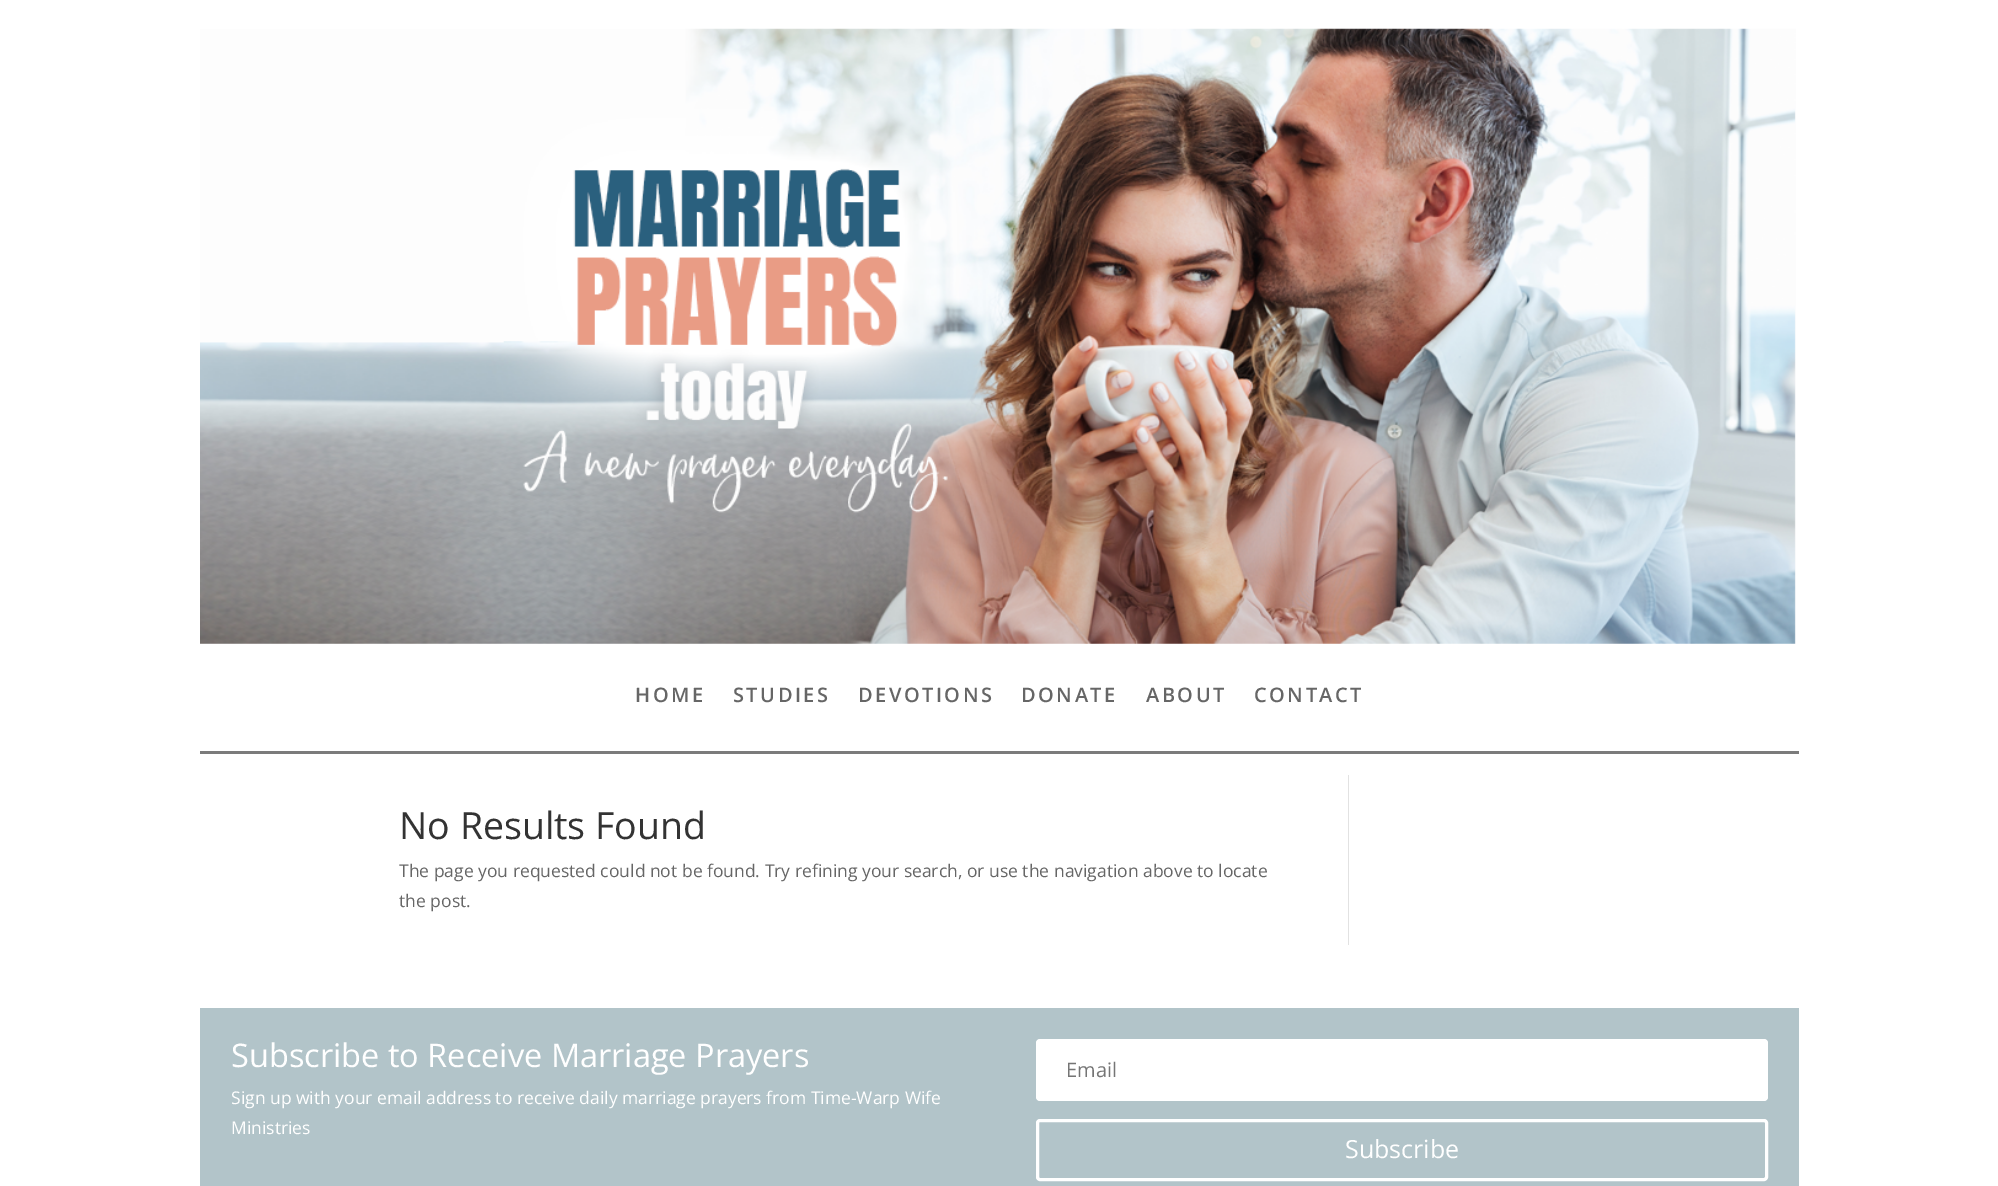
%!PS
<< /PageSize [1998 1186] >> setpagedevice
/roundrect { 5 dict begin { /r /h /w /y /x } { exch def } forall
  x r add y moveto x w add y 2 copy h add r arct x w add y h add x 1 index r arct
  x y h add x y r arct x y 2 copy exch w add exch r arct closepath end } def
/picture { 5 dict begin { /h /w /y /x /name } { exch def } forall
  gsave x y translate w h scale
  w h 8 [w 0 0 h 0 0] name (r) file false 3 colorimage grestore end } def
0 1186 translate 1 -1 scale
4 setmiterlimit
1 setgray
0 0 1998 1186 rectfill
(img1.rgb) 200 28 1596 616 picture
/OpenSans-SemiBold [20 0 0 -20 0 0] selectfont
0.4 setgray
635 702 moveto 2.5 0 (HOME) ashow
733 702 moveto 2.5 0 (STUDIES) ashow
858 702 moveto 2.5 0 (DEVOTIONS) ashow
1021 702 moveto 2.5 0 (DONATE) ashow
1146 702 moveto 2.5 0 (ABOUT) ashow
1254 702 moveto 2.5 0 (CONTACT) ashow
0.482 setgray
200 751 1599 3 rectfill
/OpenSans-Regular [37.5 0 0 -37.5 0 0] selectfont
0.2 setgray
399 839 moveto (No Results Found) show
/OpenSans-Regular [17.5 0 0 -17.5 0 0] selectfont
0.4 setgray
399 877 moveto (The page you requested could not be found. Try refining your search, or use the navigation above to locate) show
399 907 moveto (the post.) show
0.886 setgray
1348 775 1 170 rectfill
0.698 0.769 0.788 setrgbcolor
200 1008 1599 178 rectfill
/OpenSans-Regular [32.5 0 0 -32.5 0 0] selectfont
1 setgray
231 1067 moveto (Subscribe to Receive Marriage Prayers) show
/OpenSans-Regular [17.5 0 0 -17.5 0 0] selectfont
231 1104 moveto (Sign up with your email address to receive daily marriage prayers from Time-Warp Wife) show
231 1134 moveto (Ministries) show
1036 1039 732 62 4 roundrect fill
/OpenSans-Regular [20 0 0 -20 0 0] selectfont
0.459 setgray
1066 1077 moveto (Email) show
1 setgray
3 setlinewidth
1037.5 1120.5 729 59 2.5 roundrect stroke
/OpenSans-Regular [25 0 0 -25 0 0] selectfont
1345 1158 moveto (Subscribe) show
showpage
